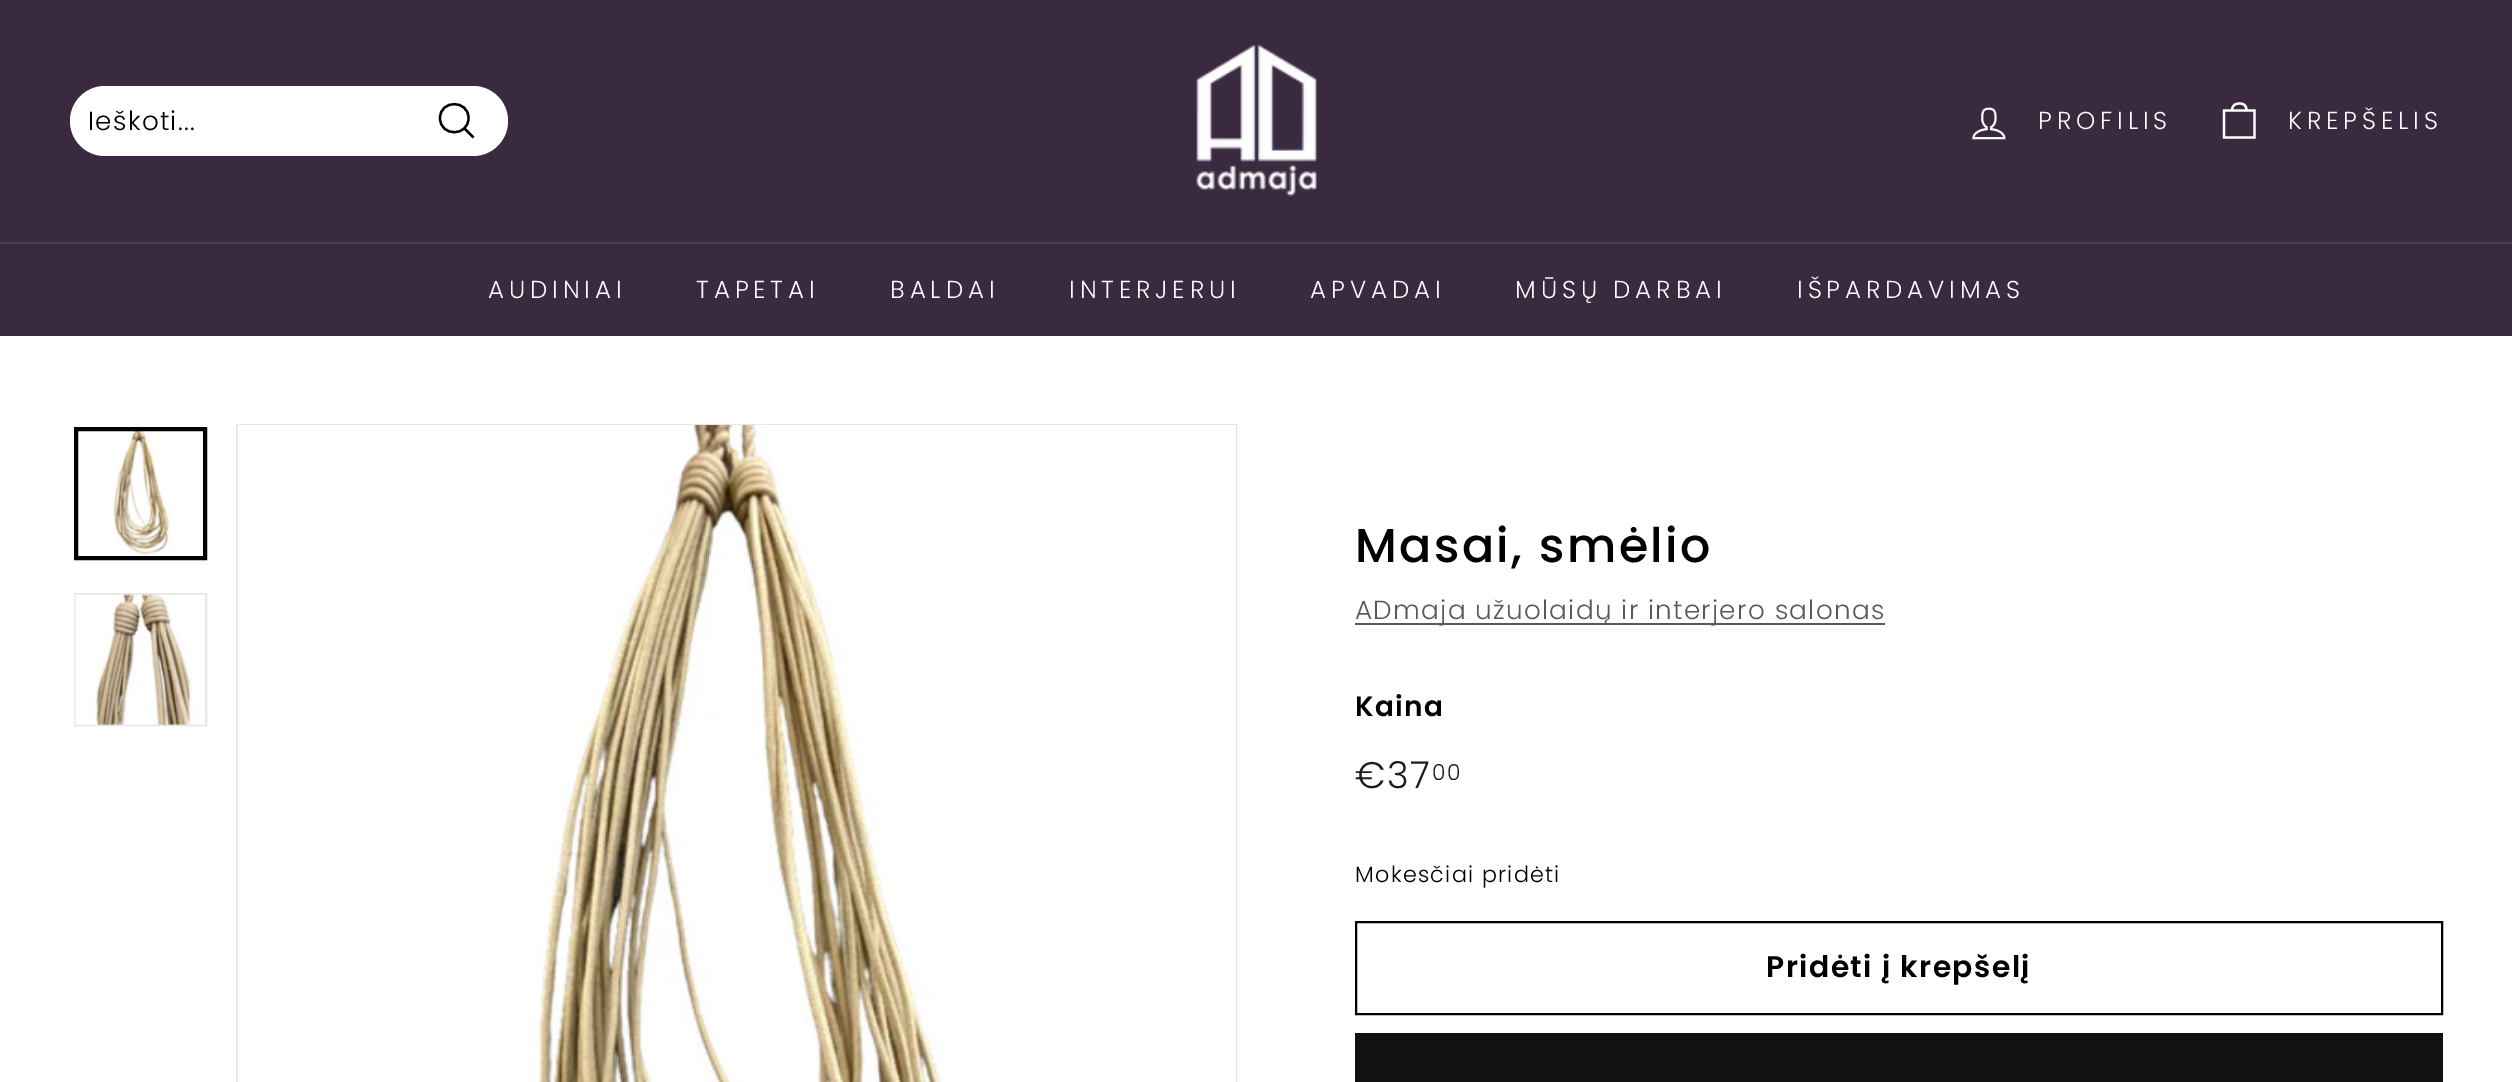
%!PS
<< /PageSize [2512 1082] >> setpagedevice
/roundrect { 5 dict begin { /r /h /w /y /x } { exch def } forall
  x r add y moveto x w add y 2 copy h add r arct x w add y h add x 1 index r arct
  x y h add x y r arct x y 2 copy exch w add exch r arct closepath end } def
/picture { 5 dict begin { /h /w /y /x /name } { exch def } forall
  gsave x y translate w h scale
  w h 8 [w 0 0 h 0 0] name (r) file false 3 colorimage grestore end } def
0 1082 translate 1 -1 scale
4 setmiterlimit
1 setgray
0 0 2512 1082 rectfill
0.224 0.165 0.251 setrgbcolor
0 0 2512 242 rectfill
1 setgray
70 86 438 70 35 roundrect fill
/Poppins-Light [26.25 0 0 -26.25 0 0] selectfont
0 setgray
88 130 moveto 1.3 0 (Ieškoti...) ashow
2.3 setlinewidth
newpath 468.5 118 moveto 468.5 137 440 137 440 118 curveto 440 99.5 468.5 99.5 468.5 118 curveto closepath 473.5 137.5 moveto 464.5 128.5 lineto stroke
(img1.rgb) 1196 45 121 152 picture
(img2.rgb) 1972 107 34 33 picture
/Poppins-Light [24.5 0 0 -24.5 0 0] selectfont
1 setgray
2038 129 moveto 4.9 0 (PROFILIS) ashow
2.2 setlinewidth
newpath 2232 110.5 moveto 2232 105 2235.5 103.5 2239.5 103.5 curveto 2243.5 103.5 2246.5 105 2246.5 110.5 curveto 2224 110.5 moveto 2254.5 110.5 lineto 2254.5 137.5 lineto 2224 137.5 lineto closepath stroke
2288 129 moveto 4.9 0 (KREPŠELIS) ashow
0.302 0.247 0.325 setrgbcolor
0 242 2512 2 rectfill
0.224 0.165 0.251 setrgbcolor
0 244 2512 92 rectfill
1 setgray
488 298 moveto 4.9 0 (AUDINIAI) ashow
696 298 moveto 4.9 0 (TAPETAI) ashow
890 298 moveto 4.9 0 (BALDAI) ashow
1069 298 moveto 4.9 0 (INTERJERUI) ashow
1310 298 moveto 4.9 0 (APVADAI) ashow
1515 298 moveto 4.9 0 (MŪSŲ DARBAI) ashow
1797 298 moveto 4.9 0 (IŠPARDAVIMAS) ashow
(img3.rgb) 78 431 125 125 picture
0 setgray
4 setlinewidth
76 429 129 129 rectstroke
0.91 0.91 0.882 setrgbcolor
2 setlinewidth
75 594 131 131 rectstroke
(img4.rgb) 74 594 131 131 picture
237 425 999 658 rectstroke
1 setgray
238 425 998 657 rectfill
(img5.rgb) 534 425 409 657 picture
/Poppins-Medium [47.5 0 0 -47.5 0 0] selectfont
0 setgray
1355 562 moveto 2.4 0 (Masai, smėlio) ashow
0.349 setgray
1355 623 530 2 rectfill
/Poppins-Light [26.25 0 0 -26.25 0 0] selectfont
1355 619 moveto 1.3 0 (ADmaja užuolaidų ir interjero salonas) ashow
/Poppins-SemiBold [28 0 0 -28 0 0] selectfont
0 setgray
1355 716 moveto 1.3 0 (Kaina) ashow
/Poppins-Light [37 0 0 -37 0 0] selectfont
0.11 0.114 0.114 setrgbcolor
1355 788 moveto 1.3 0 (€37) ashow
/Poppins-Light [22 0 0 -22 0 0] selectfont
1432 780 moveto 1.3 0 (00) ashow
/Poppins-Light [22.25 0 0 -22.25 0 0] selectfont
0 setgray
1355 882 moveto 1.3 0 (Mokesčiai pridėti) ashow
1356 922 1086 92 rectstroke
/Poppins-SemiBold [29.75 0 0 -29.75 0 0] selectfont
1766 977 moveto 1.5 0 (Pridėti į krepšelį) ashow
0.067 setgray
1355 1033 1088 49 rectfill
showpage
